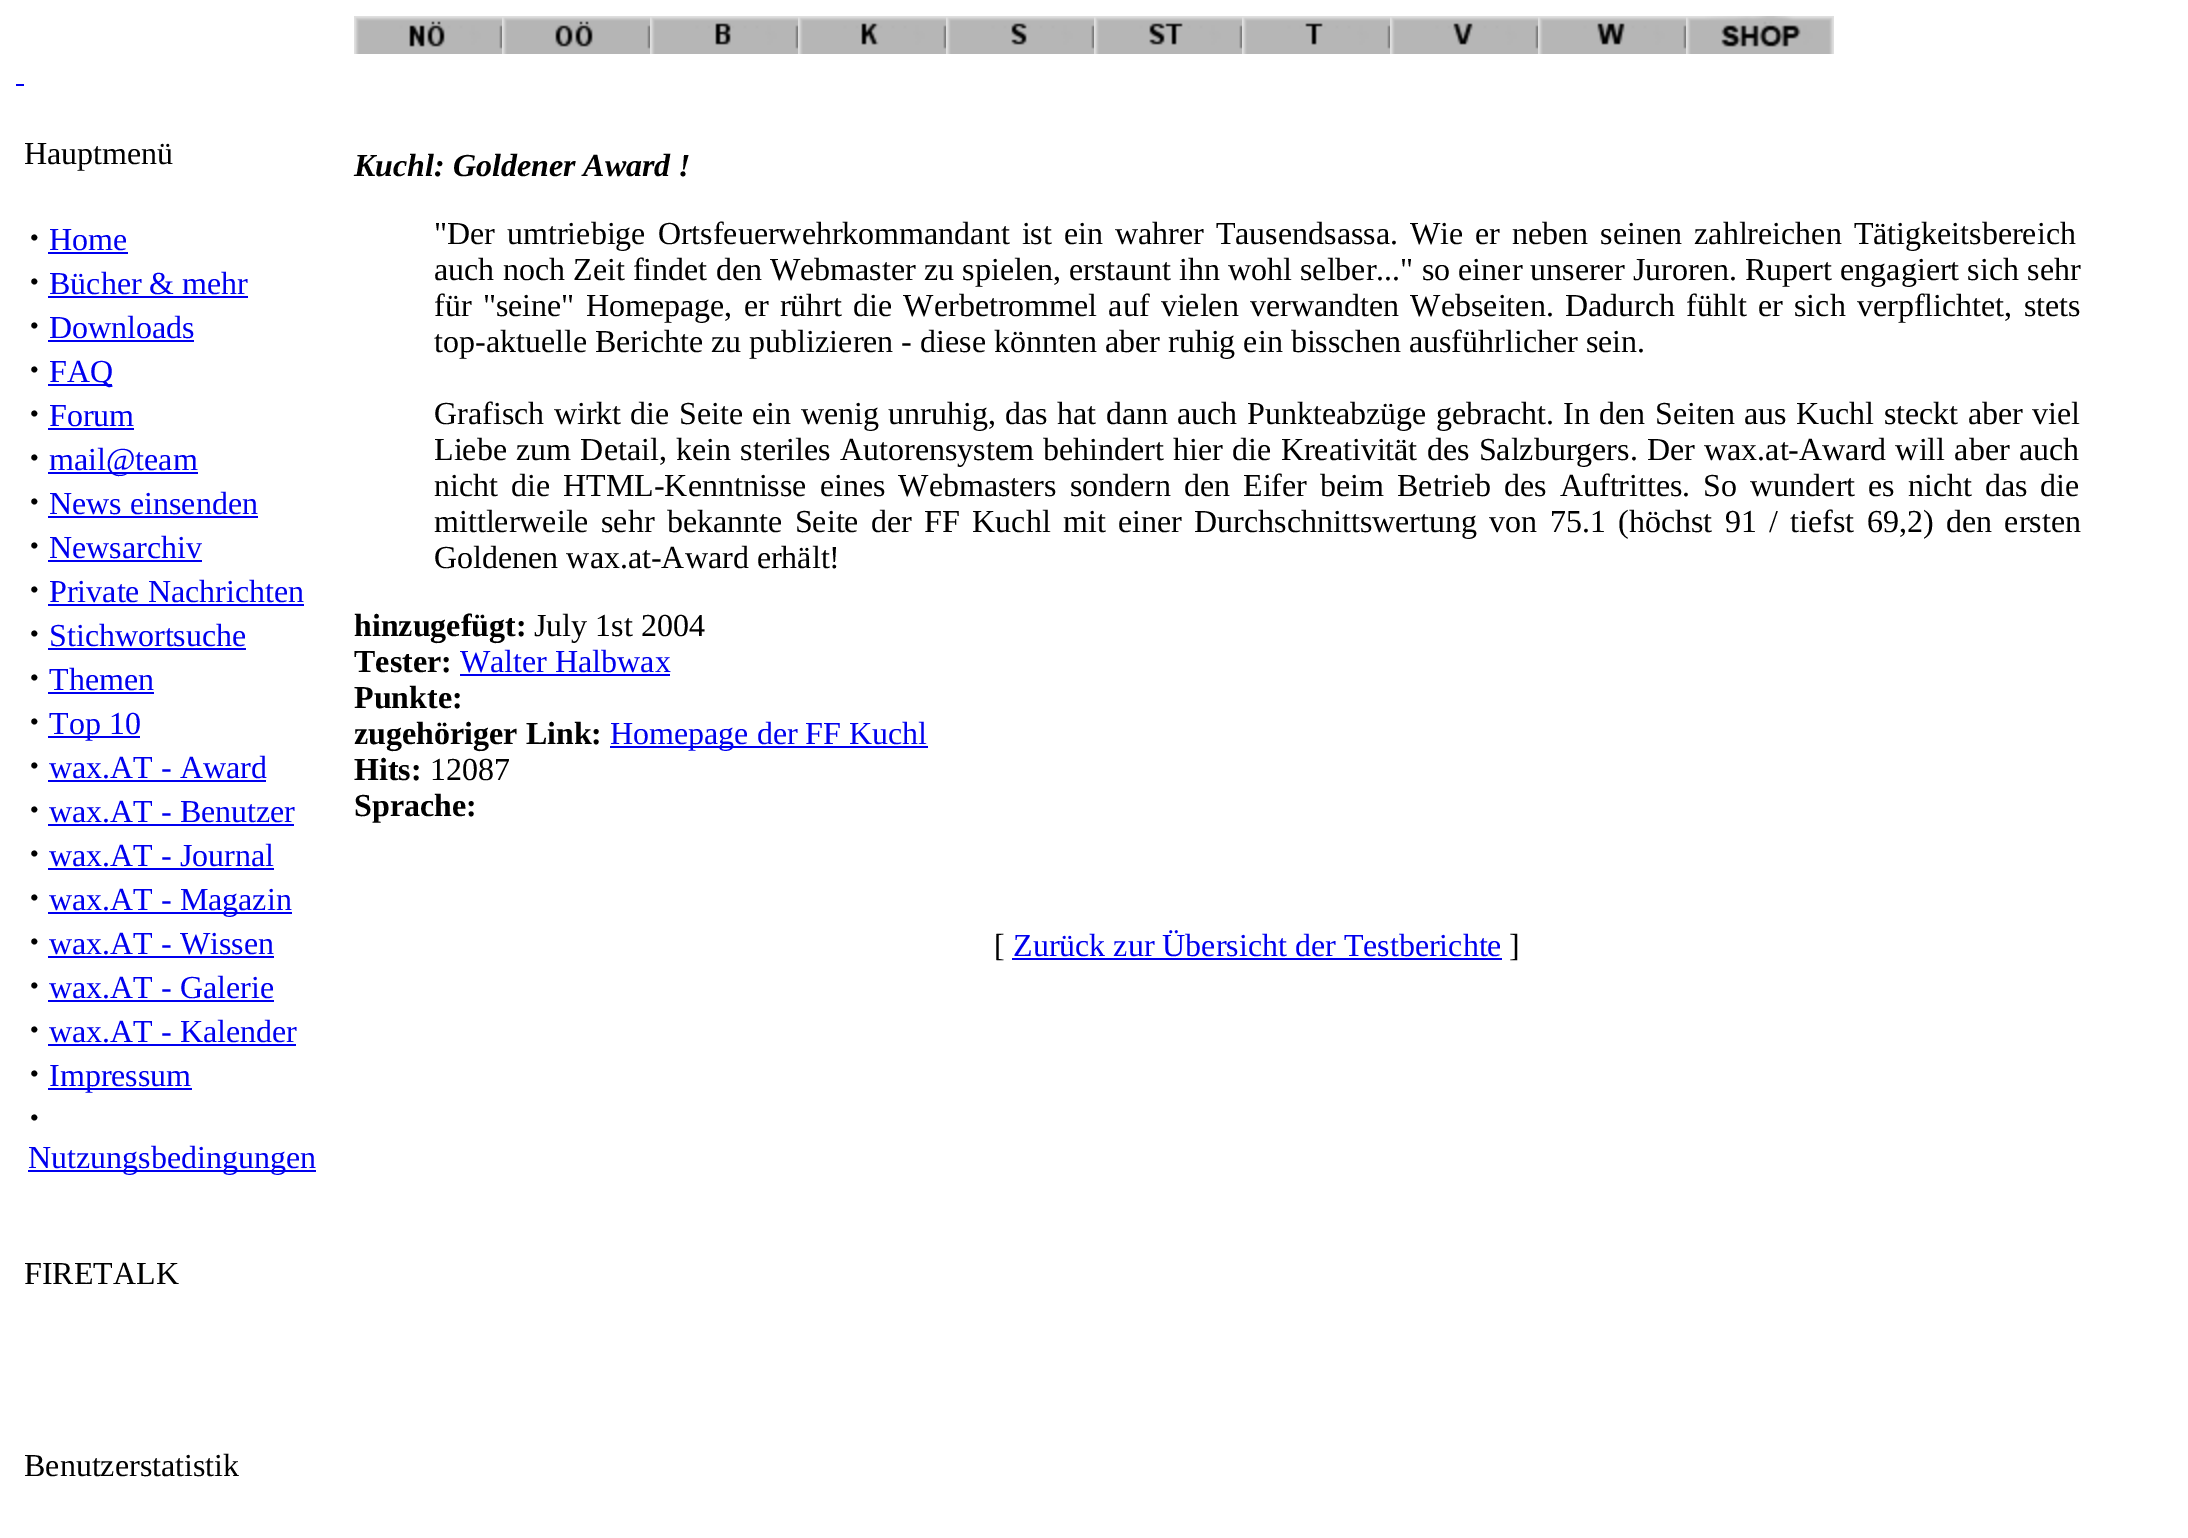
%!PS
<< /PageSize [2188 1538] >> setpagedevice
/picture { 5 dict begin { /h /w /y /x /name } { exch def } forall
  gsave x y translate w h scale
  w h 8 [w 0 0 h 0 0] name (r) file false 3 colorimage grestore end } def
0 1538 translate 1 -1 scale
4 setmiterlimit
1 setgray
0 0 2188 1538 rectfill
(img1.rgb) 354 16 148 38 picture
(img2.rgb) 502 16 148 38 picture
(img3.rgb) 650 16 148 38 picture
(img4.rgb) 798 16 148 38 picture
(img5.rgb) 946 16 148 38 picture
(img6.rgb) 1094 16 148 38 picture
(img7.rgb) 1242 16 148 38 picture
(img8.rgb) 1390 16 148 38 picture
(img9.rgb) 1538 16 148 38 picture
(img10.rgb) 1686 16 148 38 picture
0 0 0.933 setrgbcolor
16 84 8 2 rectfill
/LiberationSerif-Regular [32 0 0 -32 0 0] selectfont
0 setgray
24 164 moveto (Hauptmenü) show
/LiberationSerif-Bold [38 0 0 -38 0 0] selectfont
28 250 moveto (·) show
/LiberationSerif-Regular [32 0 0 -32 0 0] selectfont
0 0 0.933 setrgbcolor
49 250 moveto (Home) show
48 252 80 2 rectfill
/LiberationSerif-Bold [38 0 0 -38 0 0] selectfont
0 setgray
28 294 moveto (·) show
/LiberationSerif-Regular [32 0 0 -32 0 0] selectfont
0 0 0.933 setrgbcolor
49 294 moveto (Bücher & mehr) show
48 296 200 2 rectfill
/LiberationSerif-Bold [38 0 0 -38 0 0] selectfont
0 setgray
28 338 moveto (·) show
/LiberationSerif-Regular [32 0 0 -32 0 0] selectfont
0 0 0.933 setrgbcolor
49 338 moveto (Downloads) show
48 340 146 2 rectfill
/LiberationSerif-Bold [38 0 0 -38 0 0] selectfont
0 setgray
28 382 moveto (·) show
0 0 0.933 setrgbcolor
48 384 64 2 rectfill
/LiberationSerif-Regular [32 0 0 -32 0 0] selectfont
49 382 moveto (FAQ) show
/LiberationSerif-Bold [38 0 0 -38 0 0] selectfont
0 setgray
28 426 moveto (·) show
/LiberationSerif-Regular [32 0 0 -32 0 0] selectfont
0 0 0.933 setrgbcolor
49 426 moveto (Forum) show
48 428 86 2 rectfill
/LiberationSerif-Bold [38 0 0 -38 0 0] selectfont
0 setgray
28 470 moveto (·) show
0 0 0.933 setrgbcolor
48 472 150 2 rectfill
/LiberationSerif-Regular [32 0 0 -32 0 0] selectfont
49 470 moveto (mail@team) show
/LiberationSerif-Bold [38 0 0 -38 0 0] selectfont
0 setgray
28 514 moveto (·) show
/LiberationSerif-Regular [32 0 0 -32 0 0] selectfont
0 0 0.933 setrgbcolor
49 514 moveto (News einsenden) show
48 516 210 2 rectfill
/LiberationSerif-Bold [38 0 0 -38 0 0] selectfont
0 setgray
28 558 moveto (·) show
/LiberationSerif-Regular [32 0 0 -32 0 0] selectfont
0 0 0.933 setrgbcolor
49 558 moveto (Newsarchiv) show
48 560 154 2 rectfill
/LiberationSerif-Bold [38 0 0 -38 0 0] selectfont
0 setgray
28 602 moveto (·) show
/LiberationSerif-Regular [32 0 0 -32 0 0] selectfont
0 0 0.933 setrgbcolor
49 602 moveto (Private Nachrichten) show
48 604 256 2 rectfill
/LiberationSerif-Bold [38 0 0 -38 0 0] selectfont
0 setgray
28 646 moveto (·) show
/LiberationSerif-Regular [32 0 0 -32 0 0] selectfont
0 0 0.933 setrgbcolor
49 646 moveto (Stichwortsuche) show
48 648 198 2 rectfill
/LiberationSerif-Bold [38 0 0 -38 0 0] selectfont
0 setgray
28 690 moveto (·) show
/LiberationSerif-Regular [32 0 0 -32 0 0] selectfont
0 0 0.933 setrgbcolor
49 690 moveto (Themen) show
48 692 106 2 rectfill
/LiberationSerif-Bold [38 0 0 -38 0 0] selectfont
0 setgray
28 734 moveto (·) show
0 0 0.933 setrgbcolor
48 736 92 2 rectfill
/LiberationSerif-Regular [32 0 0 -32 0 0] selectfont
49 734 moveto (Top 10) show
/LiberationSerif-Bold [38 0 0 -38 0 0] selectfont
0 setgray
28 778 moveto (·) show
/LiberationSerif-Regular [32 0 0 -32 0 0] selectfont
0 0 0.933 setrgbcolor
49 778 moveto (wax.AT - Award) show
48 780 218 2 rectfill
/LiberationSerif-Bold [38 0 0 -38 0 0] selectfont
0 setgray
28 822 moveto (·) show
/LiberationSerif-Regular [32 0 0 -32 0 0] selectfont
0 0 0.933 setrgbcolor
49 822 moveto (wax.AT - Benutzer) show
48 824 246 2 rectfill
/LiberationSerif-Bold [38 0 0 -38 0 0] selectfont
0 setgray
28 866 moveto (·) show
/LiberationSerif-Regular [32 0 0 -32 0 0] selectfont
0 0 0.933 setrgbcolor
49 866 moveto (wax.AT - Journal) show
48 868 226 2 rectfill
/LiberationSerif-Bold [38 0 0 -38 0 0] selectfont
0 setgray
28 910 moveto (·) show
0 0 0.933 setrgbcolor
48 912 244 2 rectfill
/LiberationSerif-Regular [32 0 0 -32 0 0] selectfont
49 910 moveto (wax.AT - Magazin) show
/LiberationSerif-Bold [38 0 0 -38 0 0] selectfont
0 setgray
28 954 moveto (·) show
/LiberationSerif-Regular [32 0 0 -32 0 0] selectfont
0 0 0.933 setrgbcolor
49 954 moveto (wax.AT - Wissen) show
48 956 226 2 rectfill
/LiberationSerif-Bold [38 0 0 -38 0 0] selectfont
0 setgray
28 998 moveto (·) show
/LiberationSerif-Regular [32 0 0 -32 0 0] selectfont
0 0 0.933 setrgbcolor
49 998 moveto (wax.AT - Galerie) show
48 1000 226 2 rectfill
/LiberationSerif-Bold [38 0 0 -38 0 0] selectfont
0 setgray
28 1042 moveto (·) show
/LiberationSerif-Regular [32 0 0 -32 0 0] selectfont
0 0 0.933 setrgbcolor
49 1042 moveto (wax.AT - Kalender) show
48 1044 248 2 rectfill
/LiberationSerif-Bold [38 0 0 -38 0 0] selectfont
0 setgray
28 1086 moveto (·) show
0 0 0.933 setrgbcolor
48 1088 144 2 rectfill
/LiberationSerif-Regular [32 0 0 -32 0 0] selectfont
49 1086 moveto (Impressum) show
/LiberationSerif-Bold [38 0 0 -38 0 0] selectfont
0 setgray
28 1130 moveto (·) show
0 0 0.933 setrgbcolor
28 1170 288 2 rectfill
/LiberationSerif-Regular [32 0 0 -32 0 0] selectfont
28 1168 moveto (Nutzungsbedingungen) show
0 setgray
24 1284 moveto (FIRETALK) show
24 1476 moveto (Benutzerstatistik) show
/LiberationSerif-BoldItalic [32 0 0 -32 0 0] selectfont
354 176 moveto (Kuchl: Goldener Award !) show
/LiberationSerif-Regular [32 0 0 -32 0 0] selectfont
434 244 moveto 4 0 32 ("Der umtriebige Ortsfeuerwehrkommandant ist ein wahrer Tausendsassa. Wie er neben seinen zahlreichen Tätigkeitsbereich) widthshow
434 280 moveto 0.2 0 32 (auch noch Zeit findet den Webmaster zu spielen, erstaunt ihn wohl selber..." so einer unserer Juroren. Rupert engagiert sich sehr) widthshow
434 316 moveto 3.25 0 32 (für "seine" Homepage, er rührt die Werbetrommel auf vielen verwandten Webseiten. Dadurch fühlt er sich verpflichtet, stets) widthshow
434 352 moveto (top-aktuelle Berichte zu publizieren - diese könnten aber ruhig ein bisschen ausführlicher sein.) show
434 424 moveto 1.35 0 32 (Grafisch wirkt die Seite ein wenig unruhig, das hat dann auch Punkteabzüge gebracht. In den Seiten aus Kuchl steckt aber viel) widthshow
434 460 moveto 1.25 0 32 (Liebe zum Detail, kein steriles Autorensystem behindert hier die Kreativität des Salzburgers. Der wax.at-Award will aber auch) widthshow
434 496 moveto 5 0 32 (nicht die HTML-Kenntnisse eines Webmasters sondern den Eifer beim Betrieb des Auftrittes. So wundert es nicht das die) widthshow
434 532 moveto 4.4 0 32 (mittlerweile sehr bekannte Seite der FF Kuchl mit einer Durchschnittswertung von 75.1 \(höchst 91 / tiefst 69,2\) den ersten) widthshow
434 568 moveto (Goldenen wax.at-Award erhält!) show
/LiberationSerif-Bold [32 0 0 -32 0 0] selectfont
354 636 moveto (hinzugefügt:) show
/LiberationSerif-Regular [32 0 0 -32 0 0] selectfont
534 636 moveto (July 1st 2004) show
/LiberationSerif-Bold [32 0 0 -32 0 0] selectfont
354 672 moveto (Tester:) show
/LiberationSerif-Regular [32 0 0 -32 0 0] selectfont
0 0 0.933 setrgbcolor
460 672 moveto (Walter Halbwax) show
460 674 210 2 rectfill
/LiberationSerif-Bold [32 0 0 -32 0 0] selectfont
0 setgray
354 708 moveto (Punkte:) show
354 744 moveto (zugehöriger Link:) show
0 0 0.933 setrgbcolor
610 746 318 2 rectfill
/LiberationSerif-Regular [32 0 0 -32 0 0] selectfont
610 744 moveto (Homepage der FF Kuchl) show
/LiberationSerif-Bold [32 0 0 -32 0 0] selectfont
0 setgray
354 780 moveto (Hits:) show
/LiberationSerif-Regular [32 0 0 -32 0 0] selectfont
430 780 moveto (12087) show
/LiberationSerif-Bold [32 0 0 -32 0 0] selectfont
354 816 moveto (Sprache:) show
/LiberationSerif-Regular [32 0 0 -32 0 0] selectfont
994 956 moveto ([) show
0 0 0.933 setrgbcolor
1013 956 moveto (Zurück zur Übersicht der Testberichte) show
1012 958 490 2 rectfill
0 setgray
1509 956 moveto (]) show
showpage
